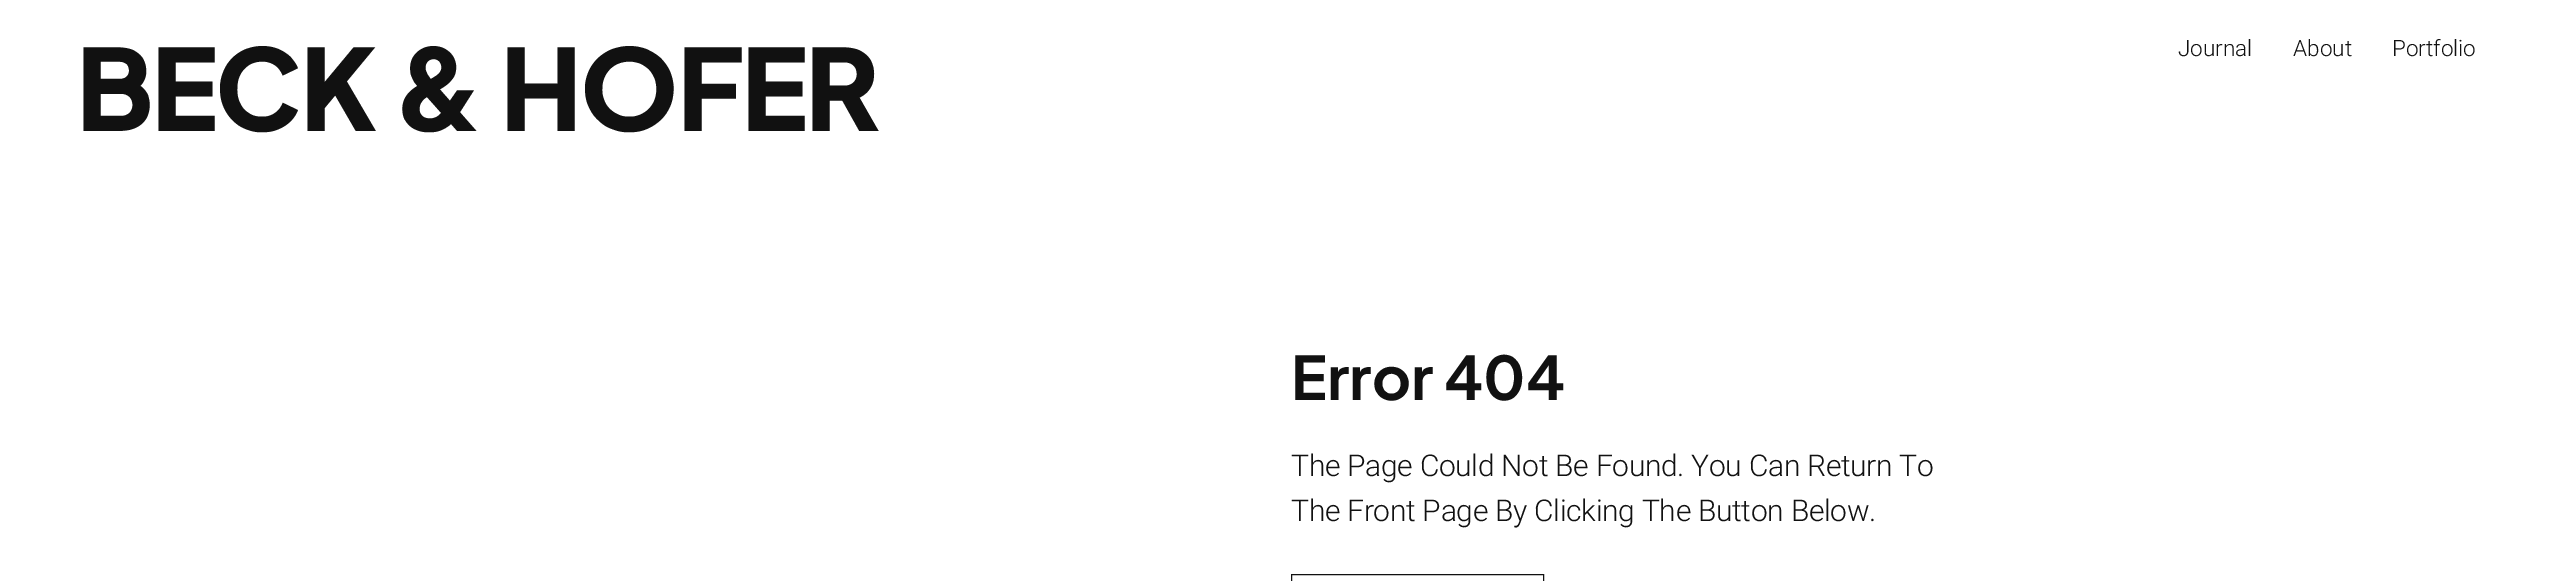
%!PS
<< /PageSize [2551 581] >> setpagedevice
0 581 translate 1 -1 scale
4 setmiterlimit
1 setgray
0 0 2551 581 rectfill
/PlusJakartaSans-ExtraBold [112.5 0 0 -112.5 0 0] selectfont
0.067 setgray
76 131 moveto -2.25 0 (BECK & HOFER) ashow
/Roboto-Light [22.5 0 0 -22.5 0 0] selectfont
2178 56 moveto (Journal) show
2293 56 moveto (About) show
2392 56 moveto (Portfolio) show
/PlusJakartaSans-Bold [60 0 0 -60 0 0] selectfont
1291 400 moveto (Error 404) show
/Roboto-Light [30 0 0 -30 0 0] selectfont
1291 476 moveto -0.3 0 (The Page Could Not Be Found. You Can Return To) ashow
1291 521 moveto -0.3 0 (The Front Page By Clicking The Button Below.) ashow
1291.5 574.5 252 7 rectstroke
showpage
